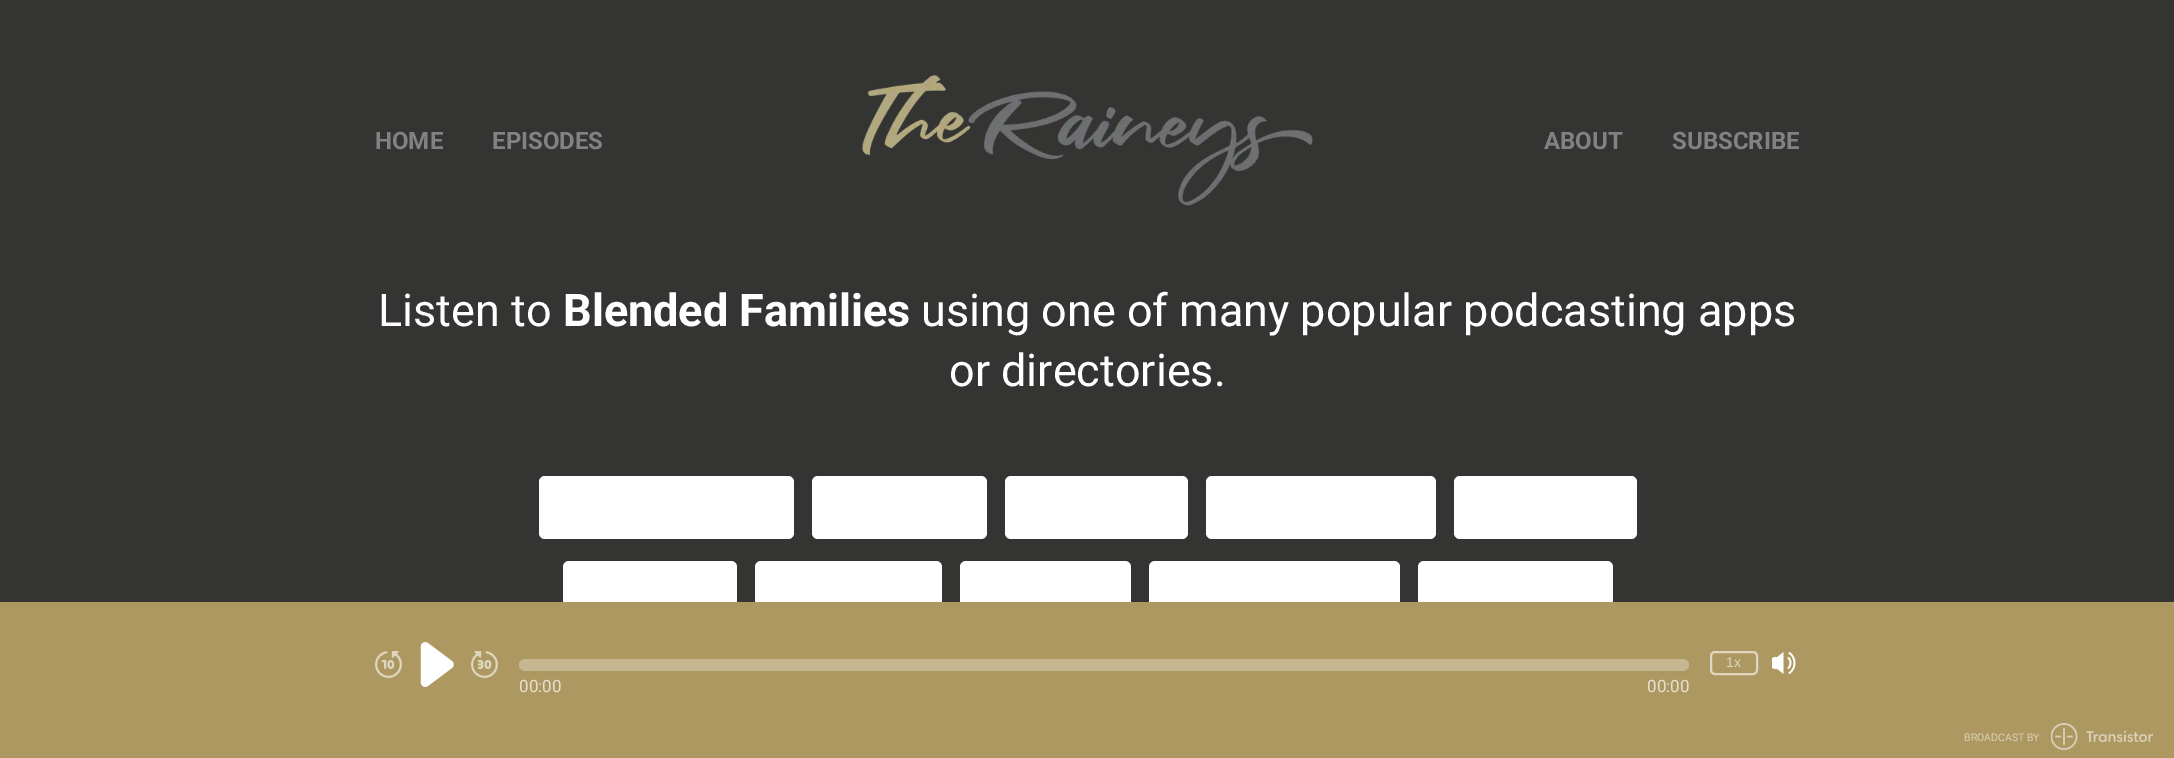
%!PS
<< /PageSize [2174 758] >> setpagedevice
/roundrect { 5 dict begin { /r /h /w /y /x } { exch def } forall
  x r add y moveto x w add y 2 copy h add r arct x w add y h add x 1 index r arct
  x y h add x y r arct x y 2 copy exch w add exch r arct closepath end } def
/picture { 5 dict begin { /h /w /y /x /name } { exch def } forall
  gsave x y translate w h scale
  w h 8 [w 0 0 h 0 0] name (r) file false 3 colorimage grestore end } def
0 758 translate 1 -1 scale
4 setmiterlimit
0.204 0.204 0.2 setrgbcolor
0 0 2174 758 rectfill
/Roboto-Bold [24 0 0 -24 0 0] selectfont
0.506 0.51 0.506 setrgbcolor
375 149 moveto (HOME) show
492 149 moveto (EPISODES) show
(img1.rgb) 862 75 451 131 picture
1544 149 moveto (ABOUT) show
1672 149 moveto (SUBSCRIBE) show
/Roboto-Regular [45 0 0 -45 0 0] selectfont
1 setgray
378 326 moveto (Listen to) show
/Roboto-Bold [45 0 0 -45 0 0] selectfont
563 326 moveto (Blended Families) show
/Roboto-Regular [45 0 0 -45 0 0] selectfont
921 326 moveto (using one of many popular podcasting apps) show
949 386 moveto (or directories.) show
539 476 255 63 6 roundrect fill
812 476 175 63 6 roundrect fill
1005 476 183 63 6 roundrect fill
1206 476 230 63 6 roundrect fill
1454 476 183 63 6 roundrect fill
563 561 174 63 6 roundrect fill
755 561 187 63 6 roundrect fill
960 561 171 63 6 roundrect fill
1149 561 251 63 6 roundrect fill
1418 561 195 63 6 roundrect fill
0.682 0.596 0.38 setrgbcolor
0 602 2174 156 rectfill
(img2.rgb) 375 651 27 27 picture
(img3.rgb) 420 642 34 45 picture
(img4.rgb) 471 651 27 27 picture
0.875 0.839 0.753 setrgbcolor
2 setlinewidth
1711 652 46 22 4 roundrect stroke
/LiberationSans-Regular [14 0 0 -14 0 0] selectfont
1726 667 moveto (1x) show
(img5.rgb) 1772 652 24 22 picture
0.776 0.718 0.565 setrgbcolor
519 659 1170 12 6 roundrect fill
/Roboto-Regular [17 0 0 -17 0 0] selectfont
0.906 0.878 0.816 setrgbcolor
519 692 moveto (00:00) show
1647 692 moveto (00:00) show
/Roboto-Regular [10.5 0 0 -10.5 0 0] selectfont
0.859 0.82 0.722 setrgbcolor
1964 741 moveto (BROADCAST BY) show
(img6.rgb) 2051 723 102 27 picture
showpage
